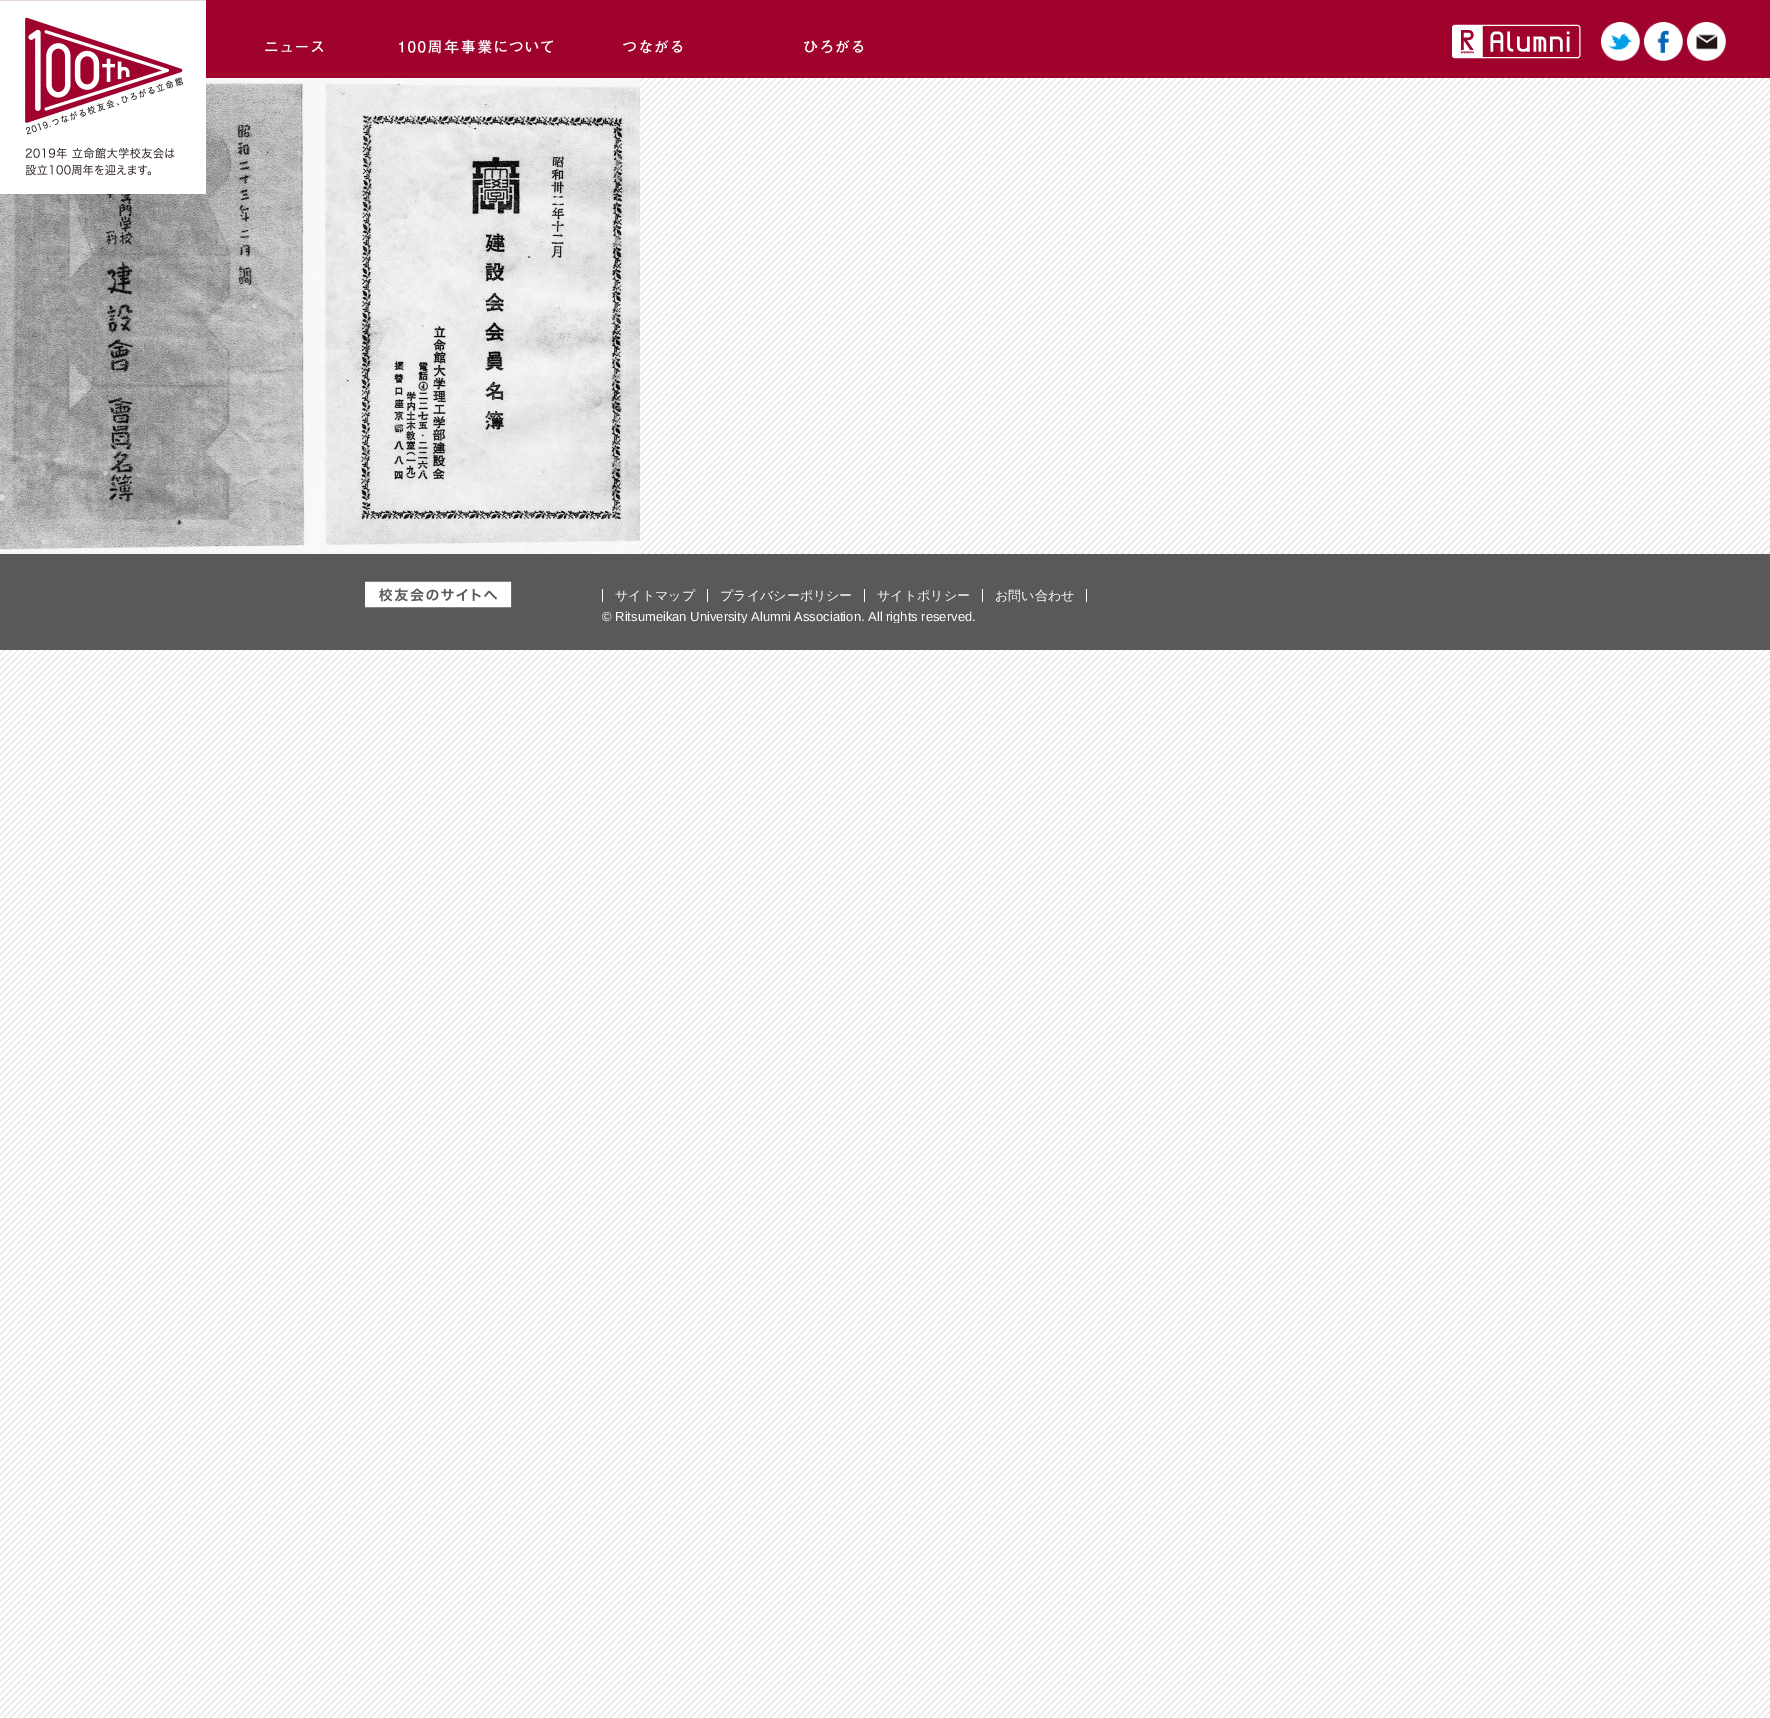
%!PS
<< /PageSize [1770 1718] >> setpagedevice
/picture { 5 dict begin { /h /w /y /x /name } { exch def } forall
  gsave x y translate w h scale
  w h 8 [w 0 0 h 0 0] name (r) file false 3 colorimage grestore end } def
0 1718 translate 1 -1 scale
4 setmiterlimit
1 setgray
0 0 1770 1718 rectfill
(img1.rgb) 0 78 1770 1640 picture
0.62 0.008 0.176 setrgbcolor
206 0 1564 78 rectfill
(img11.rgb) 0 78 640 476 picture
(img2.rgb) 0 0 206 194 picture
(img3.rgb) 265 41 59 12 picture
(img4.rgb) 399 39 155 15 picture
(img5.rgb) 623 40 60 14 picture
(img6.rgb) 803 40 61 14 picture
(img7.rgb) 1601 22 39 39 picture
(img8.rgb) 1644 22 39 39 picture
(img9.rgb) 1687 22 39 39 picture
(img10.rgb) 1452 24 129 35 picture
0.353 0.345 0.345 setrgbcolor
0 554 1770 96 rectfill
(img12.rgb) 365 581 147 27 picture
1 setgray
602 589 1 13 rectfill
707 589 1 13 rectfill
/WenQuanYiZenHei-Medium [13 0 0 -13 0 0] selectfont
615 600 moveto (サイトマップ) show
864 589 1 13 rectfill
720 600 moveto (プライバシーポリシー) show
982 589 1 13 rectfill
877 600 moveto (サイトポリシー) show
1086 589 1 13 rectfill
995 600 moveto (お問い合わせ) show
gsave
365 581 1040 42 rectclip
/LiberationSans-Regular [13 0 0 -13 0 0] selectfont
602 621 moveto (© Ritsumeikan University Alumni Association. All rights reserved.) show
grestore
showpage
